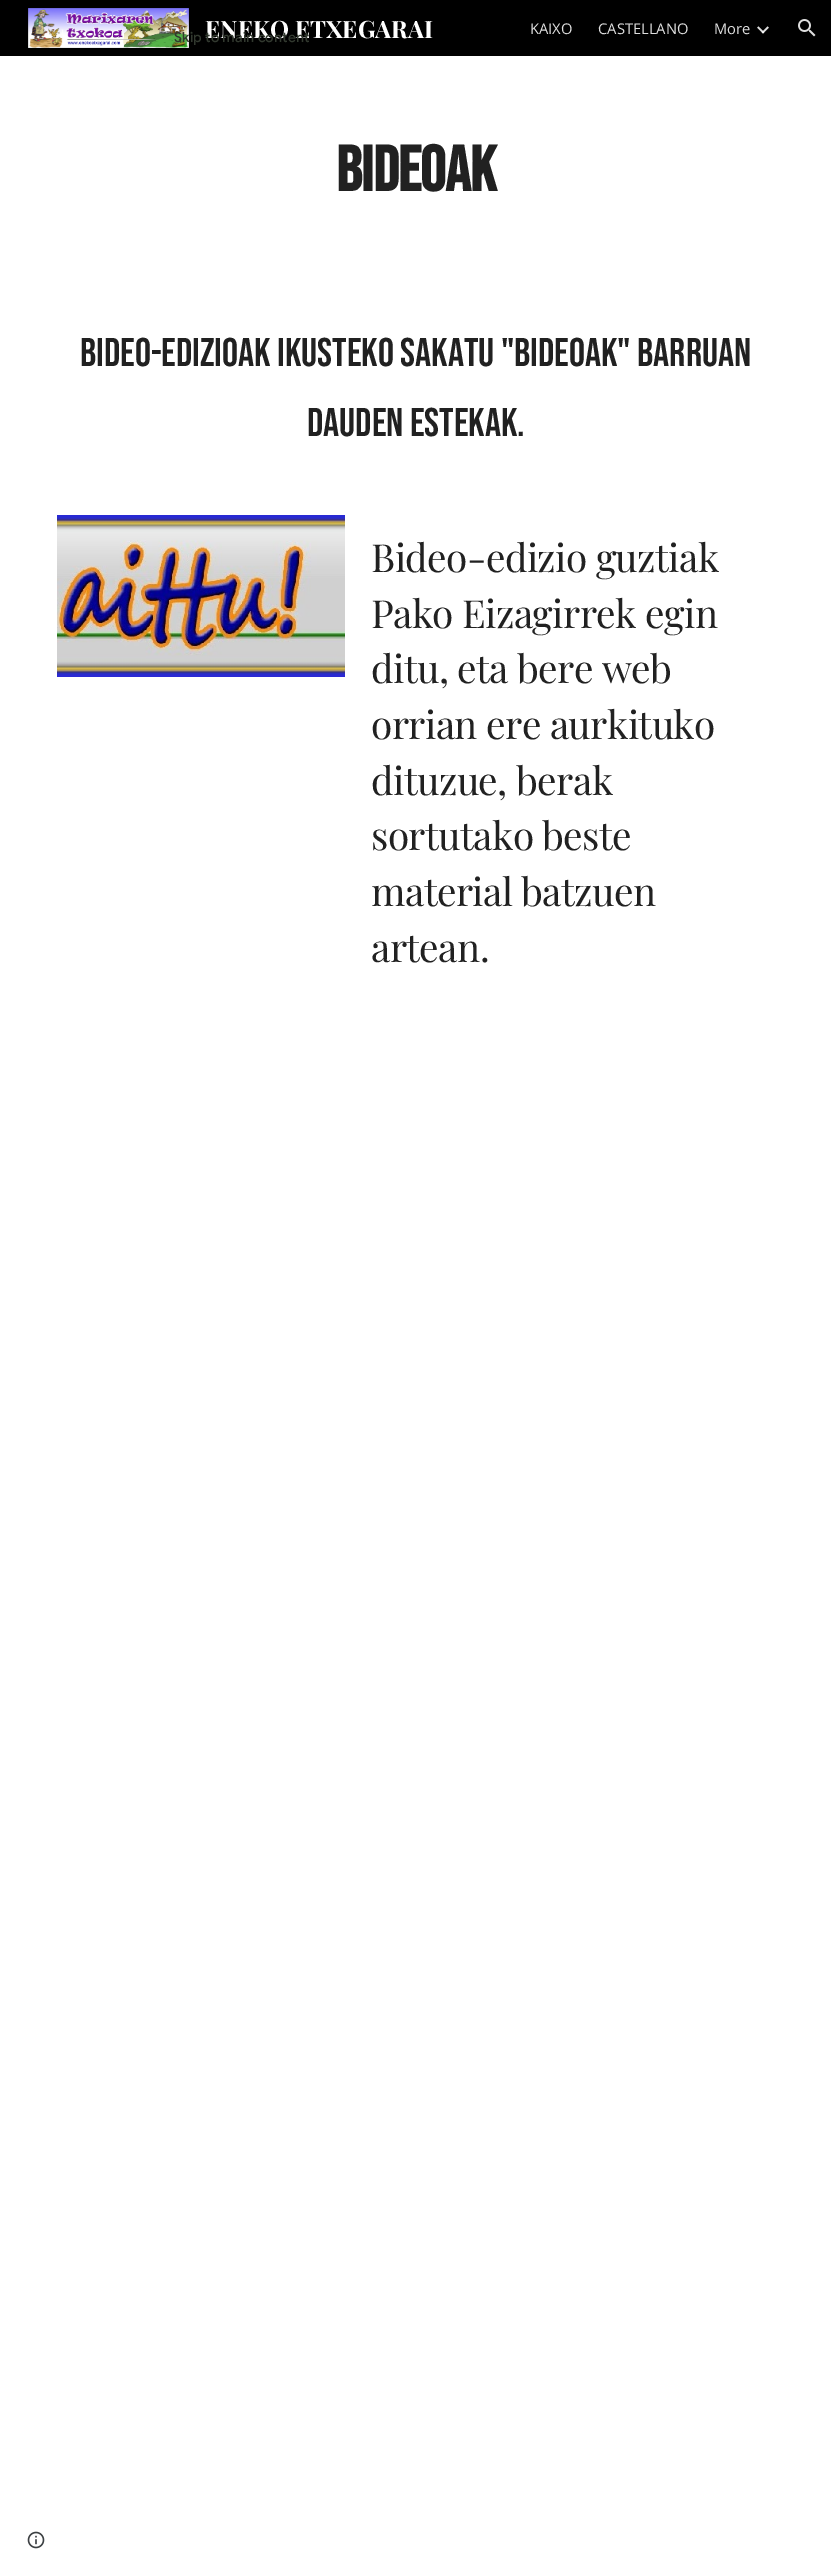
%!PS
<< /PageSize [831 2574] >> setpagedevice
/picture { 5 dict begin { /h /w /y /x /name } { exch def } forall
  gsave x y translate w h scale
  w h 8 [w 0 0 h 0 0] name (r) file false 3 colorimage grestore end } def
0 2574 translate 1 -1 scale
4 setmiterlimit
1 setgray
0 0 831 2574 rectfill
0 setgray
0 0 831 56 rectfill
(img1.rgb) 28 8 161 40 picture
/PlayfairDisplay-Bold [24 0 0 -24 0 0] selectfont
1 setgray
205 38 moveto (ENEKO ETXEGARAI) show
/OpenSans-Regular [14.75 0 0 -14.75 0 0] selectfont
0.871 setgray
530 34 moveto (KAIXO) show
598 34 moveto (CASTELLANO) show
714 34 moveto (More) show
(img2.rgb) 757 26 12 8 picture
(img3.rgb) 798 19 18 18 picture
/BebasNeue-Bold [64 0 0 -64 0 0] selectfont
0.129 setgray
336 191 moveto -0.75 0 (BIDEOAK) ashow
/BebasNeue-Regular [40 0 0 -40 0 0] selectfont
80 366 moveto (BIDEO-EDIZIOAK IKUSTEKO SAKATU "BIDEOAK" BARRUAN) show
307 436 moveto (DAUDEN ESTEKAK.) show
(img4.rgb) 57 515 288 162 picture
/PlayfairDisplay-Regular [38.75 0 0 -38.75 0 0] selectfont
371 572 moveto -0.6 0 (Bideo-edizio guztiak) ashow
371 628 moveto -0.6 0 (Pako Eizagirrek egin) ashow
371 683 moveto -0.6 0 (ditu, eta bere web) ashow
371 739 moveto -0.6 0 (orrian ere aurkituko) ashow
371 795 moveto -0.6 0 (dituzue, berak) ashow
371 850 moveto -0.6 0 (sortutako beste) ashow
371 906 moveto -0.6 0 (material batzuen) ashow
371 962 moveto -0.6 0 (artean.) ashow
(img5.rgb) 27 2531 18 18 picture
/GoogleSans-Medium [14 0 0 -14 0 0] selectfont
0.196 0.224 0.184 setrgbcolor
174 42 moveto 0.1 0 (Skip to main content) ashow
showpage
